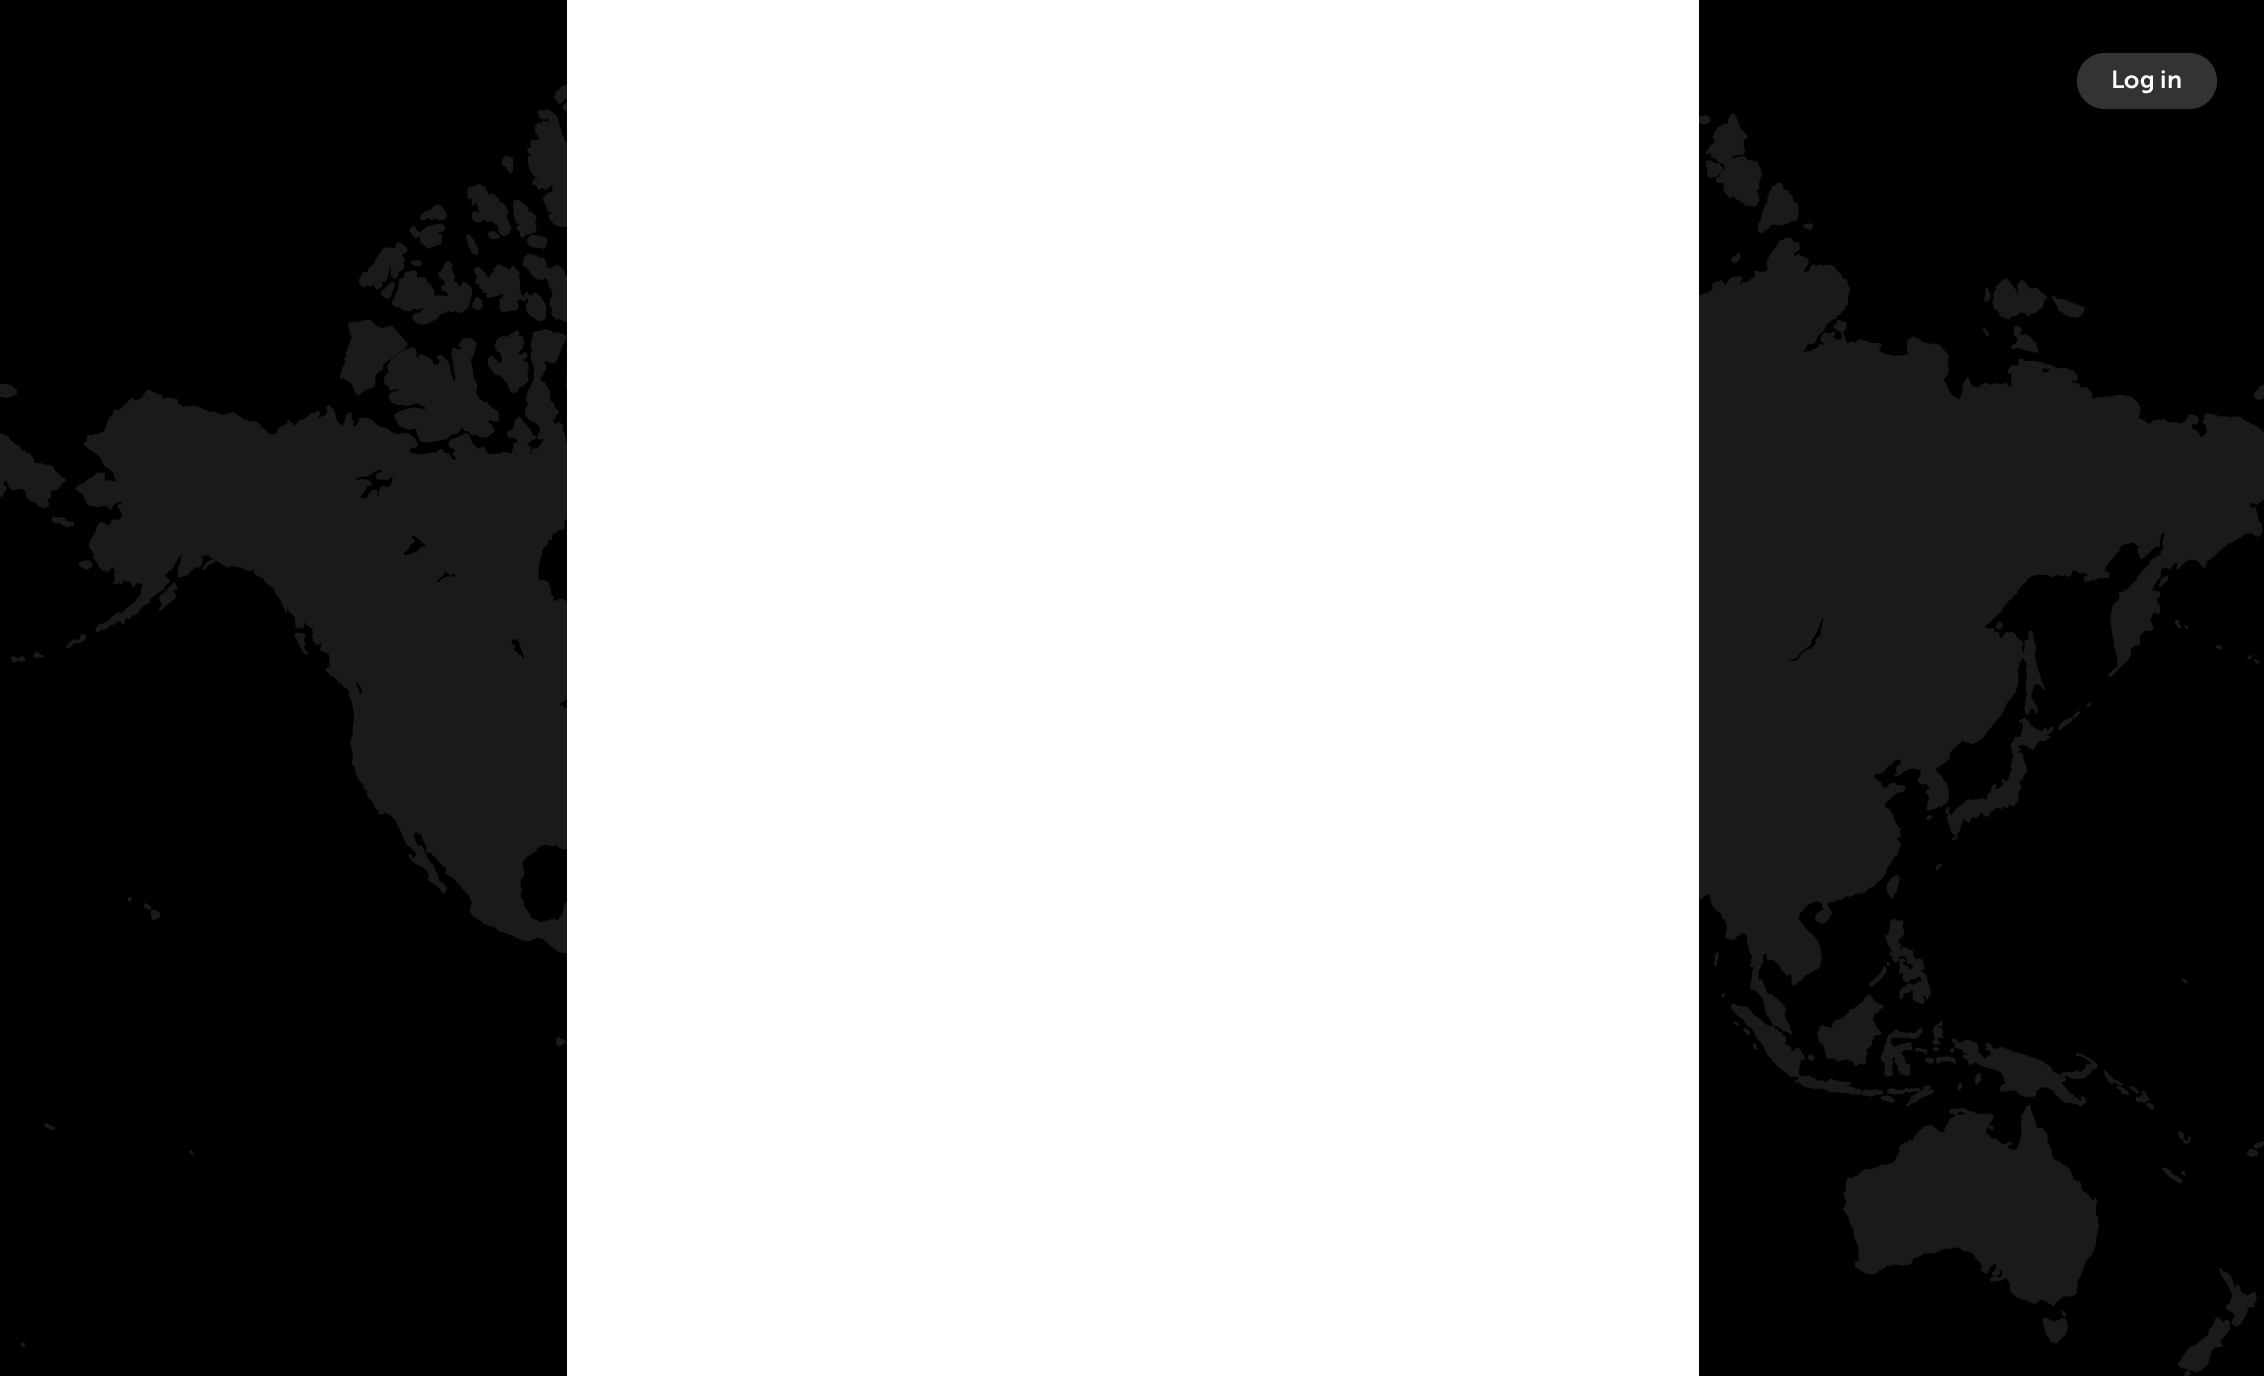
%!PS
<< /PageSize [2264 1376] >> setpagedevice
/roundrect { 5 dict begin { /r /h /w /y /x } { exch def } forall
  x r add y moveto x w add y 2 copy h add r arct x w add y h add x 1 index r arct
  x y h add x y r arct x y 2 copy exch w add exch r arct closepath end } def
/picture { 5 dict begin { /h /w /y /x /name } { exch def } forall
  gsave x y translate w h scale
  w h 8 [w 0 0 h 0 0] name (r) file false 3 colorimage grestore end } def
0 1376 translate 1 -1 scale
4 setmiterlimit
0 setgray
0 0 2264 1376 rectfill
(img1.rgb) 0 84 2264 1292 picture
1 setgray
567 0 1132 1376 rectfill
0.2 setgray
2077 53 140 56 28 roundrect fill
/MuseoSans-SemiBold [24.5 0 0 -24.5 0 0] selectfont
1 setgray
2111 88 moveto (Log in) show
showpage
